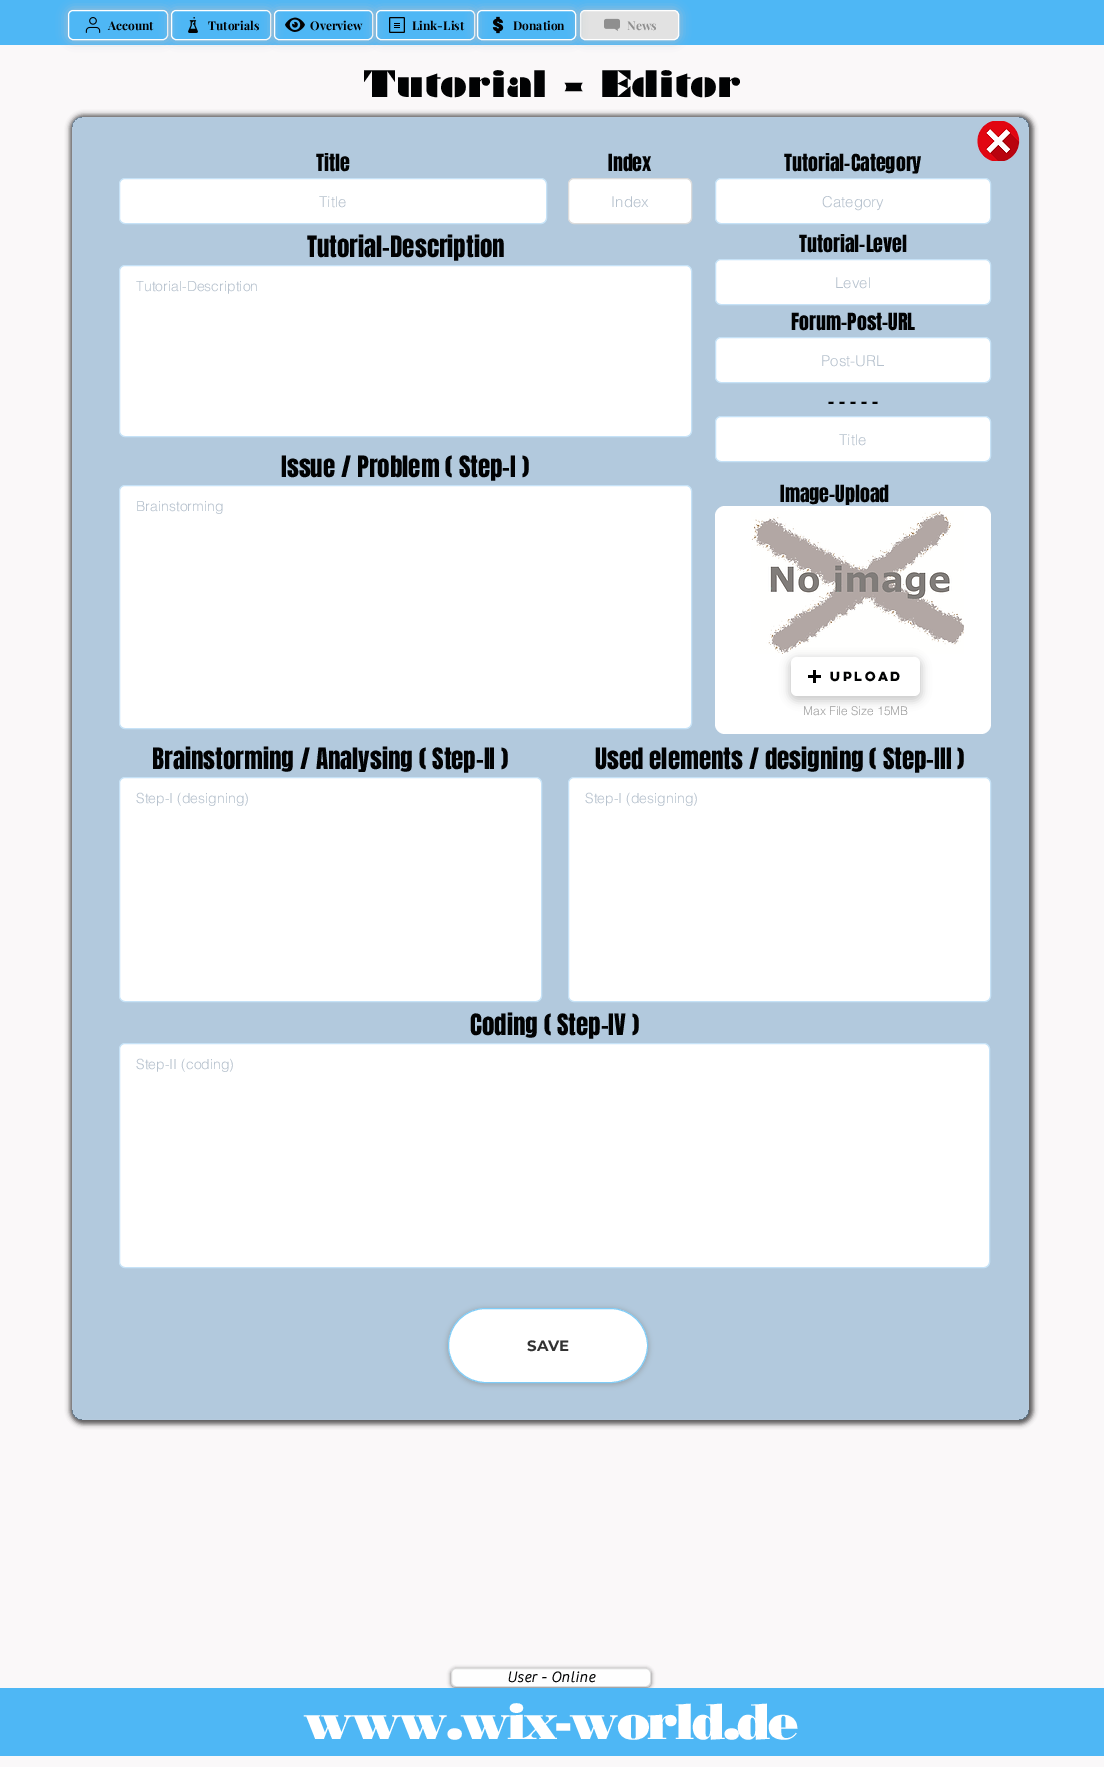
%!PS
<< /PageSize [1104 1767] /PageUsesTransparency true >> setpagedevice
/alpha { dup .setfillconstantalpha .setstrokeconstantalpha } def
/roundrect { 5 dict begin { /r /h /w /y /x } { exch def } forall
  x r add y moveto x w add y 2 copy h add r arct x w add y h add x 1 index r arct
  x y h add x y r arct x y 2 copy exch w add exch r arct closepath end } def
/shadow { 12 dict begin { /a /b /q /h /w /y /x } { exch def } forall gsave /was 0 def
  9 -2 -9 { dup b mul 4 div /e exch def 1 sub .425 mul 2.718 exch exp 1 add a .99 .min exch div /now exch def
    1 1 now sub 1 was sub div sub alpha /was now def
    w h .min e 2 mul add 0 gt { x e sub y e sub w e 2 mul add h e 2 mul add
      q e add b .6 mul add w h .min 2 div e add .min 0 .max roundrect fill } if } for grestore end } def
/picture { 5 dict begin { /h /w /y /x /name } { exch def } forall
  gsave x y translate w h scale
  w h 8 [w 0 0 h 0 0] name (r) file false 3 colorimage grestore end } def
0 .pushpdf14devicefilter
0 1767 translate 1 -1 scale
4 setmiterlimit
0.98 0.973 0.976 setrgbcolor
0 0 1104 1767 rectfill
0.306 0.718 0.961 setrgbcolor
0 0 1104 45 rectfill
gsave
newpath 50 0 moveto 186 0 lineto 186 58 lineto 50 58 lineto closepath 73 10 moveto 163 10 lineto 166 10 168 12 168 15 curveto 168 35 lineto 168 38 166 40 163 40 curveto 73 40 lineto 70 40 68 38 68 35 curveto 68 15 lineto 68 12 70 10 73 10 curveto closepath eoclip newpath
0.694 0.749 0.804 setrgbcolor
68 10 100 30 5 5.5 1 shadow
grestore
1 setgray
68.5 10.5 99 29 4.5 roundrect stroke
(img1.rgb) 85 17 16 16 picture
/PlayfairDisplay-Bold [12 0 0 -12 0 0] selectfont
0.004 0.008 0.012 setrgbcolor
108 30 moveto (Account) show
gsave
newpath 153 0 moveto 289 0 lineto 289 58 lineto 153 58 lineto closepath 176 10 moveto 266 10 lineto 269 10 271 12 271 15 curveto 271 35 lineto 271 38 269 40 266 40 curveto 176 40 lineto 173 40 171 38 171 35 curveto 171 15 lineto 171 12 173 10 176 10 curveto closepath eoclip newpath
0.694 0.749 0.804 setrgbcolor
171 10 100 30 5 5.5 1 shadow
grestore
1 setgray
171.5 10.5 99 29 4.5 roundrect stroke
(img2.rgb) 188 17 10 16 picture
0.004 0.008 0.012 setrgbcolor
208 30 moveto (Tutorials) show
gsave
newpath 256 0 moveto 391 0 lineto 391 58 lineto 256 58 lineto closepath 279 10 moveto 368 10 lineto 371 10 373 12 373 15 curveto 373 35 lineto 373 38 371 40 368 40 curveto 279 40 lineto 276 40 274 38 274 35 curveto 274 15 lineto 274 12 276 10 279 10 curveto closepath eoclip newpath
0.694 0.749 0.804 setrgbcolor
274 10 99 30 5 5.5 1 shadow
grestore
1 setgray
274.5 10.5 98 29 4.5 roundrect stroke
(img3.rgb) 285 17 20 15 picture
0.004 0.008 0.012 setrgbcolor
310 30 moveto (Overview) show
gsave
newpath 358 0 moveto 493 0 lineto 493 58 lineto 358 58 lineto closepath 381 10 moveto 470 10 lineto 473 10 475 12 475 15 curveto 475 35 lineto 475 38 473 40 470 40 curveto 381 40 lineto 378 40 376 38 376 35 curveto 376 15 lineto 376 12 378 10 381 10 curveto closepath eoclip newpath
0.694 0.749 0.804 setrgbcolor
376 10 99 30 5 5.5 1 shadow
grestore
1 setgray
376.5 10.5 98 29 4.5 roundrect stroke
(img4.rgb) 389 17 16 16 picture
0.004 0.008 0.012 setrgbcolor
412 30 moveto (Link-List) show
0.694 0.749 0.804 setrgbcolor
580 10 99 30 5 5.5 1 shadow
0.886 setgray
580.5 10.5 98 29 4.5 roundrect gsave fill grestore
1 setgray
stroke
(img5.rgb) 604 18 16 13 picture
0.561 setgray
627 30 moveto (News) show
gsave
newpath 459 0 moveto 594 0 lineto 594 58 lineto 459 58 lineto closepath 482 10 moveto 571 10 lineto 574 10 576 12 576 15 curveto 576 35 lineto 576 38 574 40 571 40 curveto 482 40 lineto 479 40 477 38 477 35 curveto 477 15 lineto 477 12 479 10 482 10 curveto closepath eoclip newpath
0.694 0.749 0.804 setrgbcolor
477 10 99 30 5 5.5 1 shadow
grestore
1 setgray
477.5 10.5 98 29 4.5 roundrect stroke
(img6.rgb) 492 16 12 18 picture
0.004 0.008 0.012 setrgbcolor
513 30 moveto (Donation) show
/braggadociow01-Regular [35 0 0 -35 0 0] selectfont
363 97 moveto (Tutorial - Editor) show
gsave
newpath 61 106 moveto 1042 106 lineto 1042 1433 lineto 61 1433 lineto closepath 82 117 moveto 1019 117 lineto 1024.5 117 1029 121.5 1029 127 curveto 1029 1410 lineto 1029 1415.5 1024.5 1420 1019 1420 curveto 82 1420 lineto 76.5 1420 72 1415.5 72 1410 curveto 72 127 lineto 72 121.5 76.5 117 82 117 curveto closepath eoclip newpath
0 setgray
70 115 963 1309 13 2.5 0.65 shadow
grestore
0.4 alpha
0.275 0.51 0.706 setrgbcolor
72 117 957 1303 10 roundrect fill
0.07 alpha
0.851 setgray
72.5 117.5 956 1302 9.5 roundrect stroke
1 alpha
(img7.rgb) 977 121 43 40 picture
/Anton-Regular [20 0 0 -20 0 0] selectfont
0.004 0.008 0.012 setrgbcolor
316 171 moveto (Title) show
1 setgray
119.5 178.5 427 45 5.5 roundrect gsave fill grestore
0.776 0.886 0.969 setrgbcolor
stroke
/helvetica-Light [15 0 0 -15 0 0] selectfont
0.714 0.757 0.804 setrgbcolor
319 207 moveto (Title) show
/Anton-Regular [20 0 0 -20 0 0] selectfont
0.004 0.008 0.012 setrgbcolor
608 171 moveto (Index) show
1 setgray
568.5 178.5 123 45 5.5 roundrect gsave fill grestore
0.859 setgray
stroke
/helvetica-Light [15 0 0 -15 0 0] selectfont
0.714 0.757 0.804 setrgbcolor
611 207 moveto (Index) show
/Anton-Regular [20 0 0 -20 0 0] selectfont
0.004 0.008 0.012 setrgbcolor
784 171 moveto (Tutorial-Category) show
1 setgray
715.5 178.5 275 45 5.5 roundrect gsave fill grestore
0.776 0.886 0.969 setrgbcolor
stroke
/helvetica-Light [15 0 0 -15 0 0] selectfont
0.714 0.757 0.804 setrgbcolor
822 207 moveto (Category) show
/Anton-Regular [20 0 0 -20 0 0] selectfont
0.004 0.008 0.012 setrgbcolor
799 252 moveto (Tutorial-Level) show
1 setgray
715.5 259.5 275 45 5.5 roundrect gsave fill grestore
0.776 0.886 0.969 setrgbcolor
stroke
/helvetica-Light [15 0 0 -15 0 0] selectfont
0.714 0.757 0.804 setrgbcolor
835 288 moveto (Level) show
/Anton-Regular [20 0 0 -20 0 0] selectfont
0.004 0.008 0.012 setrgbcolor
791 330 moveto (Forum-Post-URL) show
1 setgray
715.5 337.5 275 45 5.5 roundrect gsave fill grestore
0.776 0.886 0.969 setrgbcolor
stroke
/helvetica-Light [15 0 0 -15 0 0] selectfont
0.714 0.757 0.804 setrgbcolor
821 366 moveto (Post-URL) show
/Anton-Regular [20 0 0 -20 0 0] selectfont
0.004 0.008 0.012 setrgbcolor
828 409 moveto (- - - - -) show
1 setgray
715.5 416.5 275 45 5.5 roundrect gsave fill grestore
0.776 0.886 0.969 setrgbcolor
stroke
/helvetica-Light [15 0 0 -15 0 0] selectfont
0.714 0.757 0.804 setrgbcolor
839 445 moveto (Title) show
/Anton-Regular [25 0 0 -25 0 0] selectfont
0.004 0.008 0.012 setrgbcolor
307 257 moveto (Tutorial-Description) show
1 setgray
119.5 265.5 572 171 5.5 roundrect gsave fill grestore
0.776 0.886 0.969 setrgbcolor
stroke
/helvetica-Light [14 0 0 -14 0 0] selectfont
0.714 0.757 0.804 setrgbcolor
136 291 moveto (Tutorial-Description) show
/Anton-Regular [25 0 0 -25 0 0] selectfont
0.004 0.008 0.012 setrgbcolor
281 477 moveto (Issue / Problem \( Step-I \)) show
1 setgray
119.5 485.5 572 243 5.5 roundrect gsave fill grestore
0.776 0.886 0.969 setrgbcolor
stroke
/helvetica-Light [14 0 0 -14 0 0] selectfont
0.714 0.757 0.804 setrgbcolor
136 511 moveto (Brainstorming) show
/Anton-Regular [20 0 0 -20 0 0] selectfont
0.004 0.008 0.012 setrgbcolor
780 502 moveto (Image-Upload) show
1 setgray
715 506 276 228 10 roundrect fill
(img8.rgb) 751 511 213 143 picture
0 setgray
789 658 133 43 8 4.5 0.2 shadow
1 setgray
791 657 129 39 6 roundrect fill
0 setgray
813 670 3 13 rectfill
808 675 13 3 rectfill
/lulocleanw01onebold-Bold [12 0 0 -12 0 0] selectfont
0.004 0.008 0.012 setrgbcolor
830 681 moveto (Upload) show
/helvetica-Light [12 0 0 -12 0 0] selectfont
0.616 setgray
803 715 moveto (Max File Size 15MB) show
/Anton-Regular [25 0 0 -25 0 0] selectfont
0.004 0.008 0.012 setrgbcolor
152 769 moveto (Brainstorming / Analysing \( Step-II \)) show
1 setgray
119.5 777.5 422 224 5.5 roundrect gsave fill grestore
0.776 0.886 0.969 setrgbcolor
stroke
/helvetica-Light [14 0 0 -14 0 0] selectfont
0.714 0.757 0.804 setrgbcolor
136 803 moveto (Step-I \(designing\)) show
/Anton-Regular [25 0 0 -25 0 0] selectfont
0.004 0.008 0.012 setrgbcolor
595 769 moveto (Used elements / designing \( Step-III \)) show
1 setgray
568.5 777.5 422 224 5.5 roundrect gsave fill grestore
0.776 0.886 0.969 setrgbcolor
stroke
/helvetica-Light [14 0 0 -14 0 0] selectfont
0.714 0.757 0.804 setrgbcolor
585 803 moveto (Step-I \(designing\)) show
/Anton-Regular [25 0 0 -25 0 0] selectfont
0.004 0.008 0.012 setrgbcolor
470 1035 moveto (Coding \( Step-IV \)) show
1 setgray
119.5 1043.5 870 224 5.5 roundrect gsave fill grestore
0.776 0.886 0.969 setrgbcolor
stroke
/helvetica-Light [14 0 0 -14 0 0] selectfont
0.714 0.757 0.804 setrgbcolor
136 1069 moveto (Step-II \(coding\)) show
0.533 0.529 0.522 setrgbcolor
447 1308 202 77 38.5 2.5 0.5 shadow
1 setgray
448.5 1308.5 199 74 37 roundrect gsave fill grestore
0.498 0.8 0.969 setrgbcolor
stroke
/Montserrat-Bold [15 0 0 -15 0 0] selectfont
0.196 setgray
527 1351 moveto (SAVE) show
gsave
newpath 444 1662 moveto 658 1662 lineto 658 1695 lineto 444 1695 lineto closepath 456 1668 moveto 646 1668 lineto 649 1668 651 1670 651 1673 curveto 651 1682 lineto 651 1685 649 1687 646 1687 curveto 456 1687 lineto 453 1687 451 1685 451 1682 curveto 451 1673 lineto 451 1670 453 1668 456 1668 curveto closepath eoclip newpath
0 setgray
451 1669 200 19 5 2 0.6 shadow
grestore
0.8 alpha
1 setgray
451 1668 200 19 5 roundrect fill
0.62 alpha
0.78 setgray
451.5 1668.5 199 18 4.5 roundrect stroke
/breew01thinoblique-Bold [15 0 0 -15 0 0] selectfont
1 alpha
0.004 0.008 0.012 setrgbcolor
507 1682 moveto 0.75 0 (User - Online) ashow
0.306 0.718 0.961 setrgbcolor
0 1688 1104 68 rectfill
/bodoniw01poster-Black [50 0 0 -50 0 0] selectfont
1 setgray
303 1739 moveto -2.5 0 (www.wix-world.de) ashow
.poppdf14devicefilter showpage
